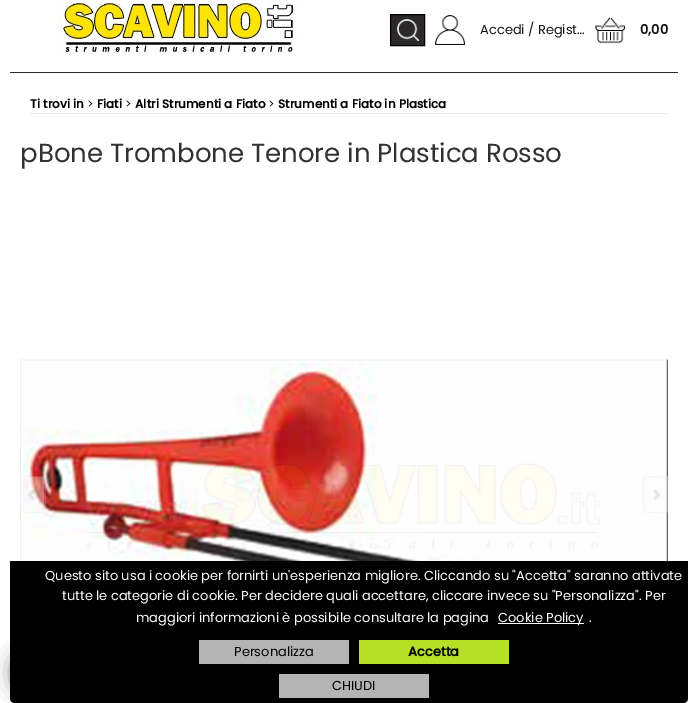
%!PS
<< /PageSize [688 703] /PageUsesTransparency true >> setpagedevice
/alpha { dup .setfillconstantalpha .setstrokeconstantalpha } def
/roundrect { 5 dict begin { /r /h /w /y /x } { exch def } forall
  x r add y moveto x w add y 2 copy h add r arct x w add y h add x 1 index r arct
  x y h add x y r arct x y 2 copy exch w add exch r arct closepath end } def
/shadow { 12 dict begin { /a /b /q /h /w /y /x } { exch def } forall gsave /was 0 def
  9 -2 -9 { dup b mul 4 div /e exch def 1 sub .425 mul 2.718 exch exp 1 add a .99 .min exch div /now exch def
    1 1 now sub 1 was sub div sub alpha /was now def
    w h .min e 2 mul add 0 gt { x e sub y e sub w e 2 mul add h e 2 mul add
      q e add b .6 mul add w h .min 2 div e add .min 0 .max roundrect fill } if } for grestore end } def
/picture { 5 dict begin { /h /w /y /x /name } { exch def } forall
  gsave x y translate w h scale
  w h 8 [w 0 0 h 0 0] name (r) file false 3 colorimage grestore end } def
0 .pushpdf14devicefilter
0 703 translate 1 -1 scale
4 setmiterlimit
1 setgray
0 0 688 703 rectfill
0.165 0.157 0.161 setrgbcolor
10 72 668 1 rectfill
(img1.rgb) 58 0 239 54 picture
391 15 33 30 rectfill
(img2.rgb) 397 19 22 22 picture
0 setgray
390.5 14.5 34 31 rectstroke
(img3.rgb) 435 15 30 30 picture
/Poppins-Regular [13 0 0 -13 0 0] selectfont
0.082 setgray
480 34 moveto (Accedi / Regist…) show
(img4.rgb) 595 17 30 27 picture
/Poppins-Bold [13 0 0 -13 0 0] selectfont
640 34 moveto (0,00) show
0.922 setgray
30 113 638 1 rectfill
/Poppins-Bold [12 0 0 -12 0 0] selectfont
0 setgray
30 108 moveto (Ti trovi in) show
/Poppins-Regular [12 0 0 -12 0 0] selectfont
87 108 moveto (>) show
/Poppins-Bold [12 0 0 -12 0 0] selectfont
97 108 moveto (Fiati) show
/Poppins-Regular [12 0 0 -12 0 0] selectfont
125 108 moveto (>) show
/Poppins-Bold [12 0 0 -12 0 0] selectfont
135 108 moveto (Altri Strumenti a Fiato) show
/Poppins-Regular [12 0 0 -12 0 0] selectfont
268 108 moveto (>) show
/Poppins-Bold [12 0 0 -12 0 0] selectfont
278 108 moveto (Strumenti a Fiato in Plastica) show
/Poppins-Regular [26 0 0 -26 0 0] selectfont
0.192 setgray
20 162 moveto (pBone Trombone Tenore in Plastica Rosso) show
(img5.rgb) 20 359 648 202 picture
0.2 alpha
0.937 setgray
21 476 25 37 rectfill
1 alpha
(img6.rgb) 20 476 25 37 picture
0.2 alpha
642 476 26 37 rectfill
1 alpha
(img7.rgb) 643 476 25 37 picture
0 setgray
15 653 40 40 20 10 0.7 shadow
0.176 0.216 0.282 setrgbcolor
614 642 64 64 32 16 0.3 shadow
0 setgray
newpath 10 561 moveto 688 561 lineto 688 698 lineto 688 701 686 703 683 703 curveto 15 703 lineto 12 703 10 701 10 698 curveto closepath fill
/Poppins-Regular [13 0 0 -13 0 0] selectfont
1 setgray
45 580 moveto (Questo sito usa i cookie per fornirti un'esperienza migliore. Cliccando su "Accetta" saranno attivate) show
62 600 moveto (tutte le categorie di cookie. Per decidere quali accettare, cliccare invece su "Personalizza". Per) show
136 622 moveto (maggiori informazioni è possibile consultare la pagina) show
498 623 86 1 rectfill
498 622 moveto (Cookie Policy) show
589 622 moveto (.) show
0.706 setgray
199 640 150 24 rectfill
0 setgray
234 656 moveto (Personalizza) show
0.714 0.878 0.149 setrgbcolor
359 640 150 24 rectfill
/Poppins-Bold [13 0 0 -13 0 0] selectfont
0 setgray
408 656 moveto (Accetta) show
0.706 setgray
279 674 150 24 rectfill
/Poppins-Regular [13 0 0 -13 0 0] selectfont
0 setgray
332 690 moveto (CHIUDI) show
.poppdf14devicefilter showpage
